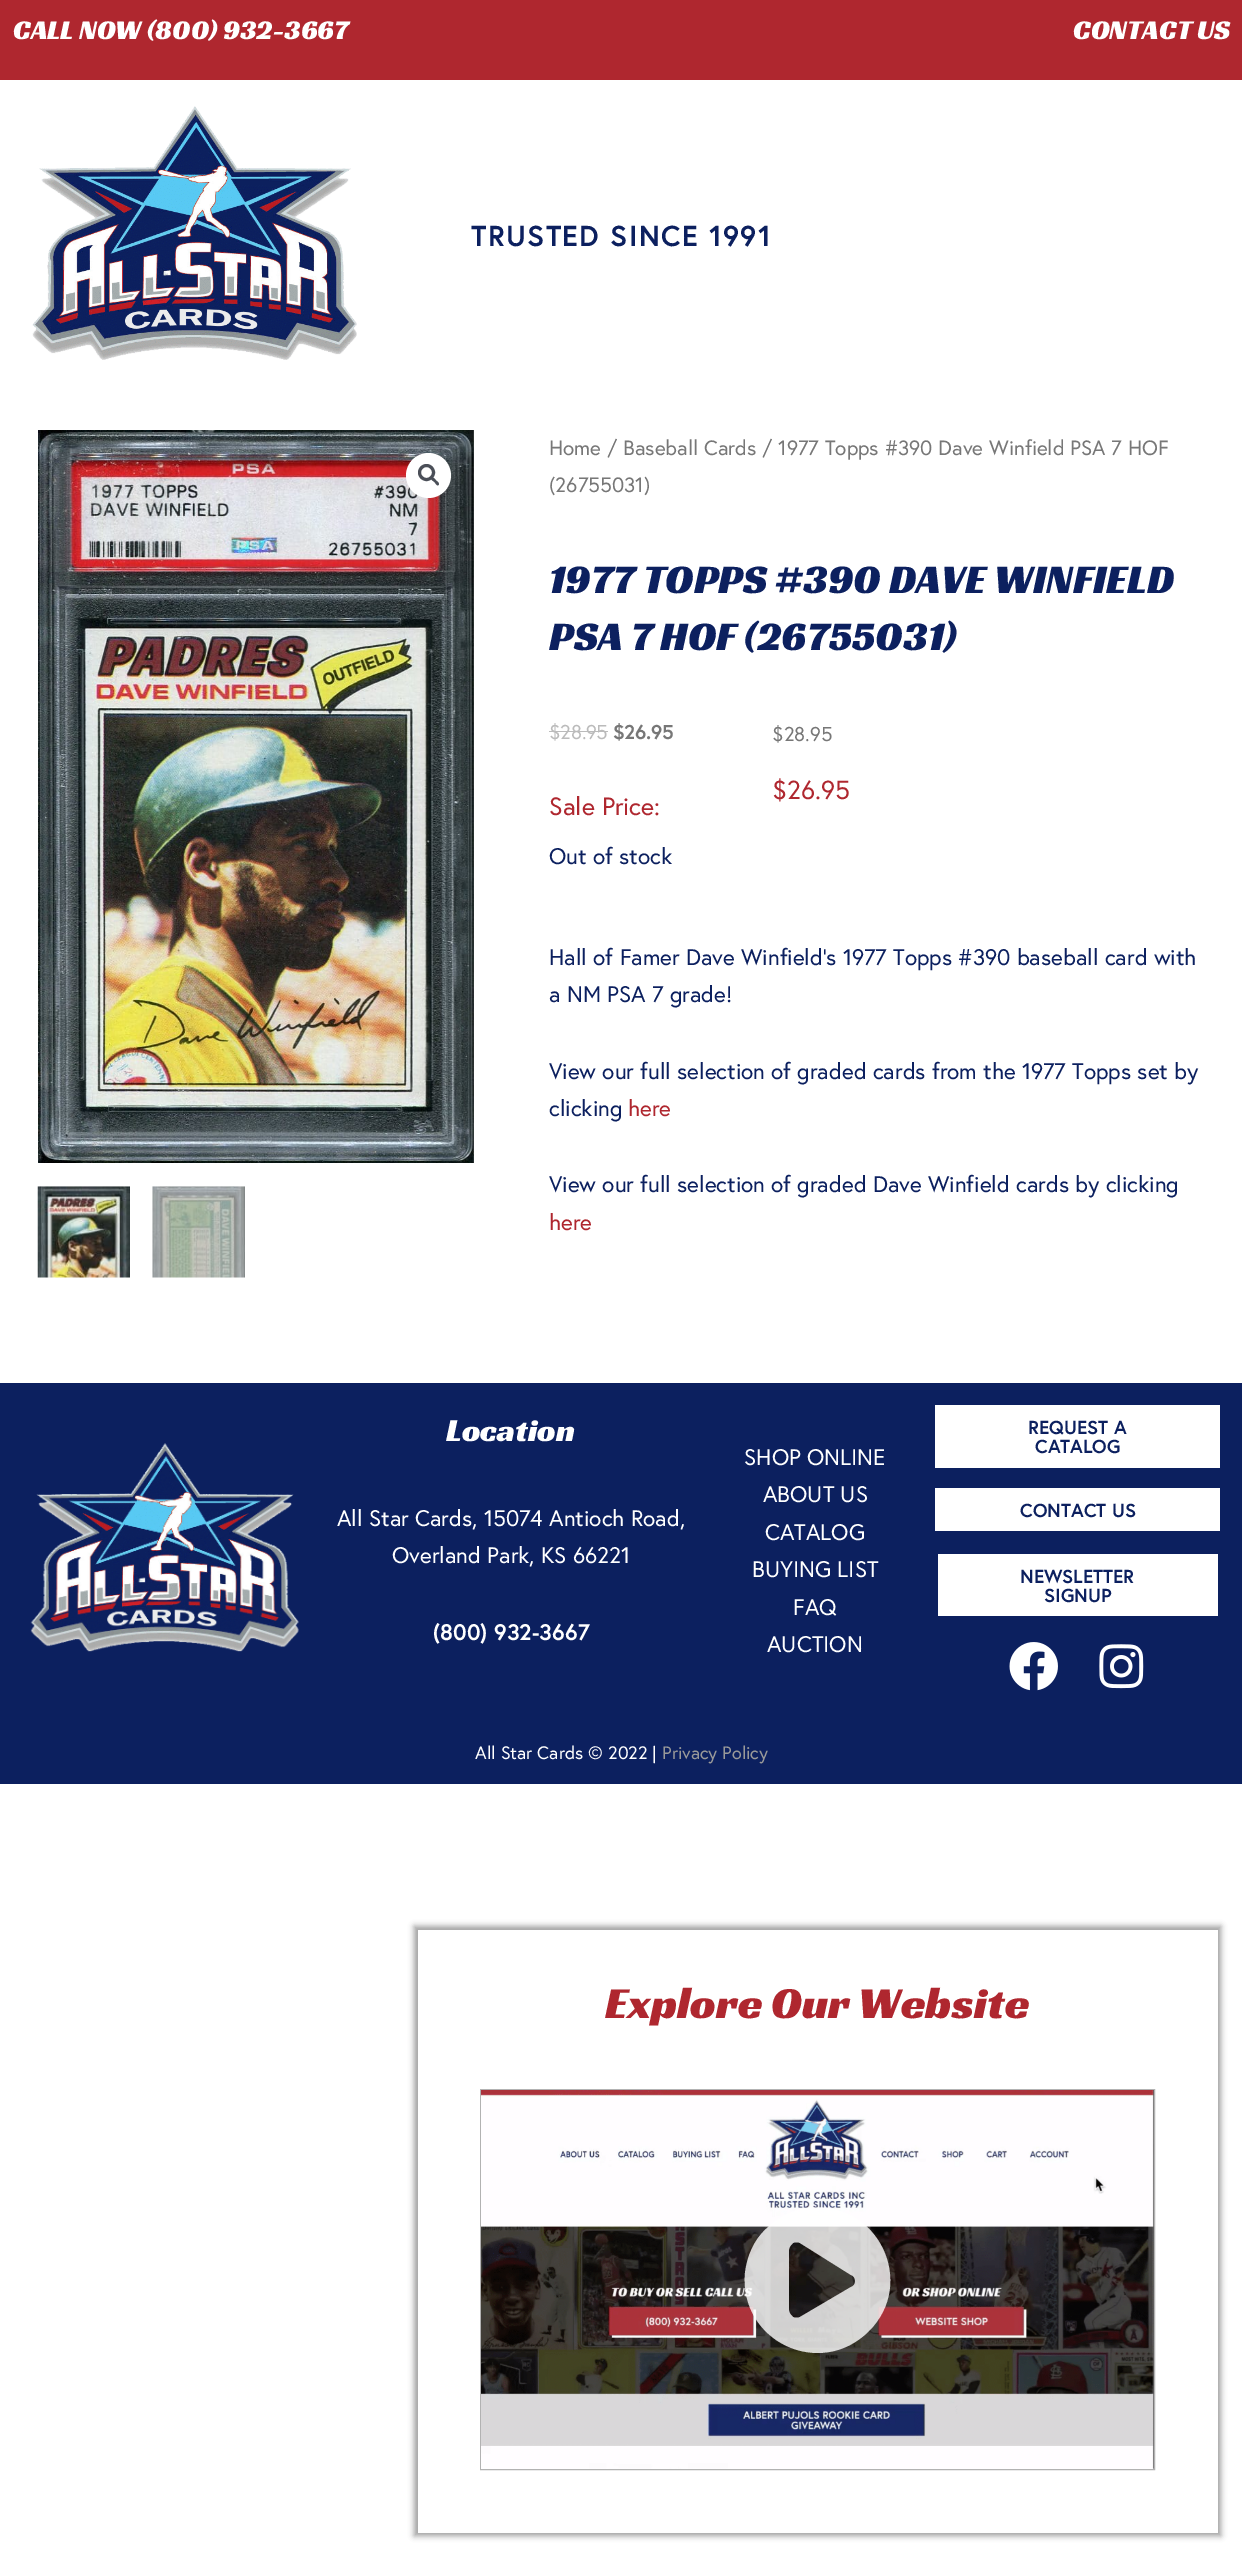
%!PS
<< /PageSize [1242 2557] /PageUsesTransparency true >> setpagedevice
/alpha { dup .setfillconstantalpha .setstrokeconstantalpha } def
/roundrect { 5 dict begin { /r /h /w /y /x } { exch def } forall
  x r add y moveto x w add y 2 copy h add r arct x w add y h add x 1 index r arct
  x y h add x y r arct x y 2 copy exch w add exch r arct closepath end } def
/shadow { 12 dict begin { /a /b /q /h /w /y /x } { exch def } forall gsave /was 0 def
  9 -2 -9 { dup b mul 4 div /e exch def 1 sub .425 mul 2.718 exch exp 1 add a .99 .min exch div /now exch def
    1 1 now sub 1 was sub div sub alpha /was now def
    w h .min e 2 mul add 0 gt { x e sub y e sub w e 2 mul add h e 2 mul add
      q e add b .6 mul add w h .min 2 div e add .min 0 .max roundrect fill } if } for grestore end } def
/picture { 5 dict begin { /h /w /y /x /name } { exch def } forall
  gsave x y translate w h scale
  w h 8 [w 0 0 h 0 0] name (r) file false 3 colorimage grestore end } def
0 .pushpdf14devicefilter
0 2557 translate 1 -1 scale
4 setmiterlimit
1 setgray
0 0 1242 2557 rectfill
0.686 0.153 0.184 setrgbcolor
0 0 1242 80 rectfill
/RacingSansOne-Regular [27.5 0 0 -27.5 0 0] selectfont
1 setgray
13 39 moveto (CALL NOW \(800\) 932-3667) show
1073 39 moveto (CONTACT US) show
(img1.rgb) 32 106 325 254 picture
/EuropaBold-Bold [28.75 0 0 -28.75 0 0] selectfont
0.047 0.125 0.373 setrgbcolor
471 246 moveto 1.4 0 (TRUSTED SINCE 1991) ashow
(img2.rgb) 38 430 436 733 picture
1 setgray
newpath 428.5 475.5 22.5 0 360 arc closepath fill
0.294 0.31 0.345 setrgbcolor
3 setlinewidth
newpath 426.5 472.5 7 0 360 arc closepath stroke
newpath 431.5 478 moveto 433 476.5 435.5 479.5 436 480.5 curveto 437 481 440 483.5 438.5 485 curveto 437.5 486.5 435 483 434.5 482 curveto 433.5 481.5 430 479 431.5 478 curveto closepath fill
(img3.rgb) 37 1186 93 92 picture
(img4.rgb) 152 1186 93 92 picture
/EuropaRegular-Regular [20.7 0 0 -20.7 0 0] selectfont
0.467 setgray
549 455 moveto (Home / Baseball Cards / 1977 Topps #390 Dave Winfield PSA 7 HOF) show
549 492 moveto (\(26755031\)) show
/RacingSansOne-Regular [41.25 0 0 -41.25 0 0] selectfont
0.047 0.125 0.373 setrgbcolor
549 593 moveto (1977 TOPPS #390 DAVE WINFIELD) show
549 650 moveto (PSA 7 HOF \(26755031\)) show
/EuropaRegular-Regular [20 0 0 -20 0 0] selectfont
0.733 setgray
549 739 moveto -0.25 0 ($28.95) ashow
549 731 59 1 rectfill
/EuropaBold-Bold [20 0 0 -20 0 0] selectfont
0.467 setgray
613 739 moveto -0.25 0 ($26.95) ashow
/EuropaRegular-Regular [20 0 0 -20 0 0] selectfont
772 741 moveto ($28.95) show
/EuropaRegular-Regular [26 0 0 -26 0 0] selectfont
0.686 0.153 0.184 setrgbcolor
772 799 moveto ($26.95) show
/EuropaRegular-Regular [25 0 0 -25 0 0] selectfont
549 815 moveto (Sale Price:) show
/EuropaRegular-Regular [22.5 0 0 -22.5 0 0] selectfont
0.047 0.125 0.373 setrgbcolor
549 864 moveto (Out of stock) show
549 965 moveto (Hall of Famer Dave Winfield’s 1977 Topps #390 baseball card with) show
549 1002 moveto (a NM PSA 7 grade!) show
549 1079 moveto (View our full selection of graded cards from the 1977 Topps set by) show
549 1116 moveto (clicking) show
0.686 0.153 0.184 setrgbcolor
628 1116 moveto (here) show
0.047 0.125 0.373 setrgbcolor
549 1192 moveto (View our full selection of graded Dave Winfield cards by clicking) show
0.686 0.153 0.184 setrgbcolor
549 1230 moveto (here) show
0.047 0.125 0.373 setrgbcolor
0 1383 1242 401 rectfill
(img5.rgb) 30 1443 269 209 picture
/RacingSansOne-Regular [32.5 0 0 -32.5 0 0] selectfont
1 setgray
446 1441 moveto (Location) show
/EuropaRegular-Regular [22.5 0 0 -22.5 0 0] selectfont
337 1526 moveto (All Star Cards, 15074 Antioch Road,) show
392 1563 moveto (Overland Park, KS 66221) show
/EuropaBold-Bold [22.5 0 0 -22.5 0 0] selectfont
433 1640 moveto (\(800\) 932-3667) show
/EuropaRegular-Regular [22.5 0 0 -22.5 0 0] selectfont
744 1465 moveto (SHOP ONLINE) show
763 1502 moveto (ABOUT US) show
765 1540 moveto (CATALOG) show
752 1577 moveto (BUYING LIST) show
793 1615 moveto (FAQ) show
767 1652 moveto (AUCTION) show
935 1405 285 63 rectfill
/EuropaBold-Bold [18.75 0 0 -18.75 0 0] selectfont
0.047 0.125 0.373 setrgbcolor
1028 1434 moveto (REQUEST A) show
1035 1453 moveto (CATALOG) show
1 setgray
935 1488 285 43 rectfill
0.047 0.125 0.373 setrgbcolor
1020 1517 moveto (CONTACT US) show
1 setgray
938 1554 280 62 rectfill
0.047 0.125 0.373 setrgbcolor
1020 1583 moveto (NEWSLETTER) show
1044 1602 moveto (SIGNUP) show
(img6.rgb) 1009 1642 49 49 picture
(img7.rgb) 1099 1644 45 45 picture
/EuropaRegular-Regular [18 0 0 -18 0 0] selectfont
1 setgray
475 1759 moveto (All Star Cards © 2022 |) show
0.6 setgray
662 1759 moveto (Privacy Policy) show
0 setgray
414 1926 807 610 0 3 0.37 shadow
1 setgray
418 1930 800 603 rectfill
/RacingSansOne-Regular [45 0 0 -45 0 0] selectfont
0.686 0.153 0.184 setrgbcolor
605 2018 moveto (Explore Our Website) show
0.698 setgray
1 setlinewidth
480.5 2089.5 674 380 rectstroke
(img8.rgb) 481 2090 673 379 picture
0.8 alpha
1 setgray
newpath 766 2229 moveto 778 2217 793 2209 810 2208 curveto 878 2201 917 2283 869 2331 curveto 820 2380 739 2341 745 2273 curveto 747 2256 754 2240 766 2229 curveto closepath 851 2287 moveto 854 2286 855 2284 855 2281 curveto 855 2278 854 2276 851 2275 curveto 800 2243 lineto 798 2242 795 2242 793 2243 curveto 791 2245 789 2247 789 2250 curveto 789 2310 lineto 789 2313 791 2315 793 2317 curveto 795 2318 798 2318 800 2317 curveto closepath fill
.poppdf14devicefilter showpage
